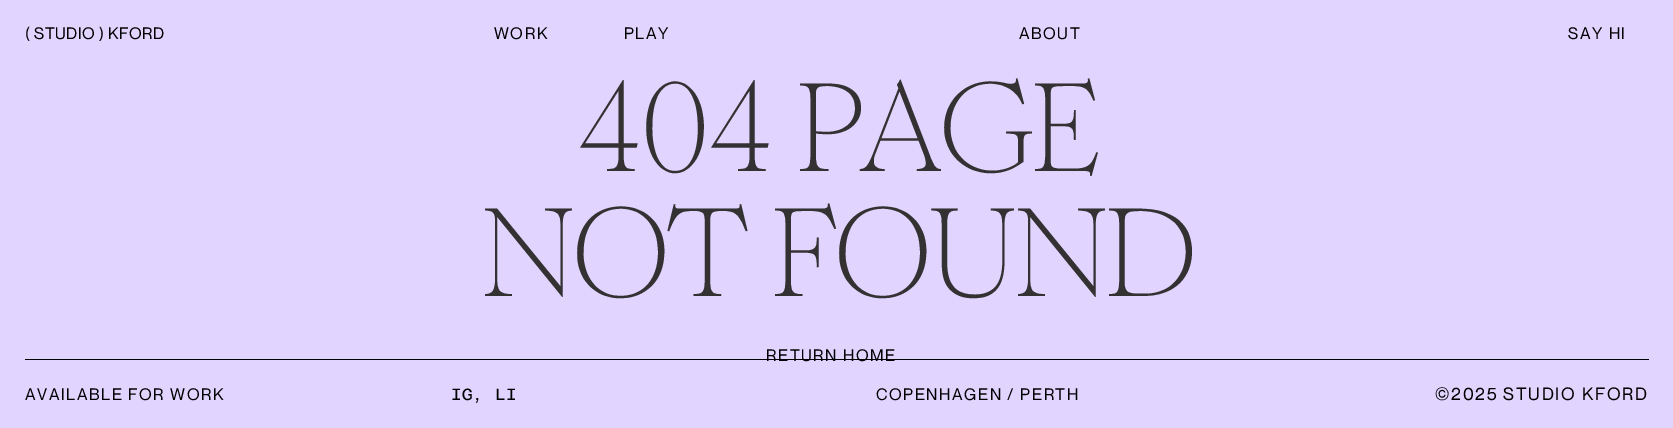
%!PS
<< /PageSize [1673 428] >> setpagedevice
0 428 translate 1 -1 scale
4 setmiterlimit
0.882 0.831 1 setrgbcolor
0 0 1673 428 rectfill
/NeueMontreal-Regular [16.25 0 0 -16.25 0 0] selectfont
0 setgray
25 39 moveto 0.5 0 (\( STUDIO \) KFORD) ashow
494 39 moveto 1.6 0 (WORK) ashow
624 39 moveto 1.6 0 (PLAY) ashow
1019 39 moveto 1.6 0 (ABOUT) ashow
1568 39 moveto 1.6 0 (SAY HI) ashow
/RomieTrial-Light [125 0 0 -125 0 0] selectfont
0.2 0.192 0.192 setrgbcolor
577 171 moveto -3.75 0 (404 PAGE) ashow
481 296 moveto -3.75 0 (NOT FOUND) ashow
/NeueMontreal-Regular [16.25 0 0 -16.25 0 0] selectfont
0 setgray
766 361 moveto 1.6 0 (RETURN HOME) ashow
25 359 1624 1 rectfill
25 400 moveto 1.6 0 (AVAILABLE FOR WORK) ashow
/AzeretMono-Thin [16.25 0 0 -16.25 0 0] selectfont
451 400 moveto (IG) show
472 400 moveto (,) show
495 400 moveto (LI) show
/NeueMontreal-Regular [16.25 0 0 -16.25 0 0] selectfont
876 400 moveto 1.6 0 (COPENHAGEN / PERTH) ashow
/NeueMontreal-Regular [17.5 0 0 -17.5 0 0] selectfont
1435 400 moveto 1.75 0 (©2025 STUDIO KFORD) ashow
showpage
